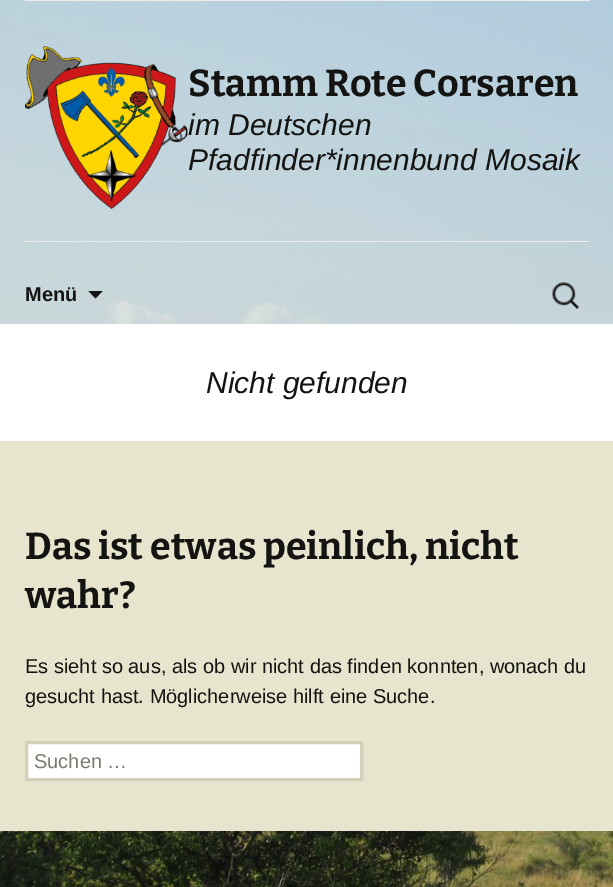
%!PS
<< /PageSize [613 887] >> setpagedevice
/picture { 5 dict begin { /h /w /y /x /name } { exch def } forall
  gsave x y translate w h scale
  w h 8 [w 0 0 h 0 0] name (r) file false 3 colorimage grestore end } def
0 887 translate 1 -1 scale
4 setmiterlimit
1 setgray
0 0 613 887 rectfill
(img1.rgb) 0 0 613 887 picture
0.929 setgray
25 241 564 1 rectfill
(img2.rgb) 25 46 163 163 picture
25 0 565 1 rectfill
/Bitter-Bold [37.5 0 0 -37.5 0 0] selectfont
0.078 0.078 0.071 setrgbcolor
188 96 moveto (Stamm Rote Corsaren) show
/LiberationSans-Italic [30 0 0 -30 0 0] selectfont
188 135 moveto (im Deutschen) show
188 170 moveto (Pfadfinder*innenbund Mosaik) show
/LiberationSans-Bold [20 0 0 -20 0 0] selectfont
25 301 moveto (Menü) show
newpath 88.5 291 moveto 95.5 298.5 lineto 102.5 291 lineto closepath fill
(img3.rgb) 552 282 27 27 picture
1 setgray
0 324 613 117 rectfill
/LiberationSans-Italic [30 0 0 -30 0 0] selectfont
0.078 0.078 0.071 setrgbcolor
206 393 moveto (Nicht gefunden) show
0.91 0.898 0.808 setrgbcolor
0 441 613 390 rectfill
/Bitter-Bold [37.5 0 0 -37.5 0 0] selectfont
0.078 0.078 0.071 setrgbcolor
25 559 moveto (Das ist etwas peinlich, nicht) show
25 608 moveto (wahr?) show
/LiberationSans-Regular [20 0 0 -20 0 0] selectfont
25 673 moveto (Es sieht so aus, als ob wir nicht das finden konnten, wonach du) show
25 703 moveto (gesucht hast. Möglicherweise hilft eine Suche.) show
1 setgray
newpath 26.5 742.5 moveto 361.5 742.5 lineto 361.5 779.5 lineto 26.5 779.5 lineto closepath gsave fill grestore
0.831 0.816 0.729 setrgbcolor
3 setlinewidth
stroke
0.49 0.482 0.427 setrgbcolor
34 768 moveto (Suchen …) show
showpage
